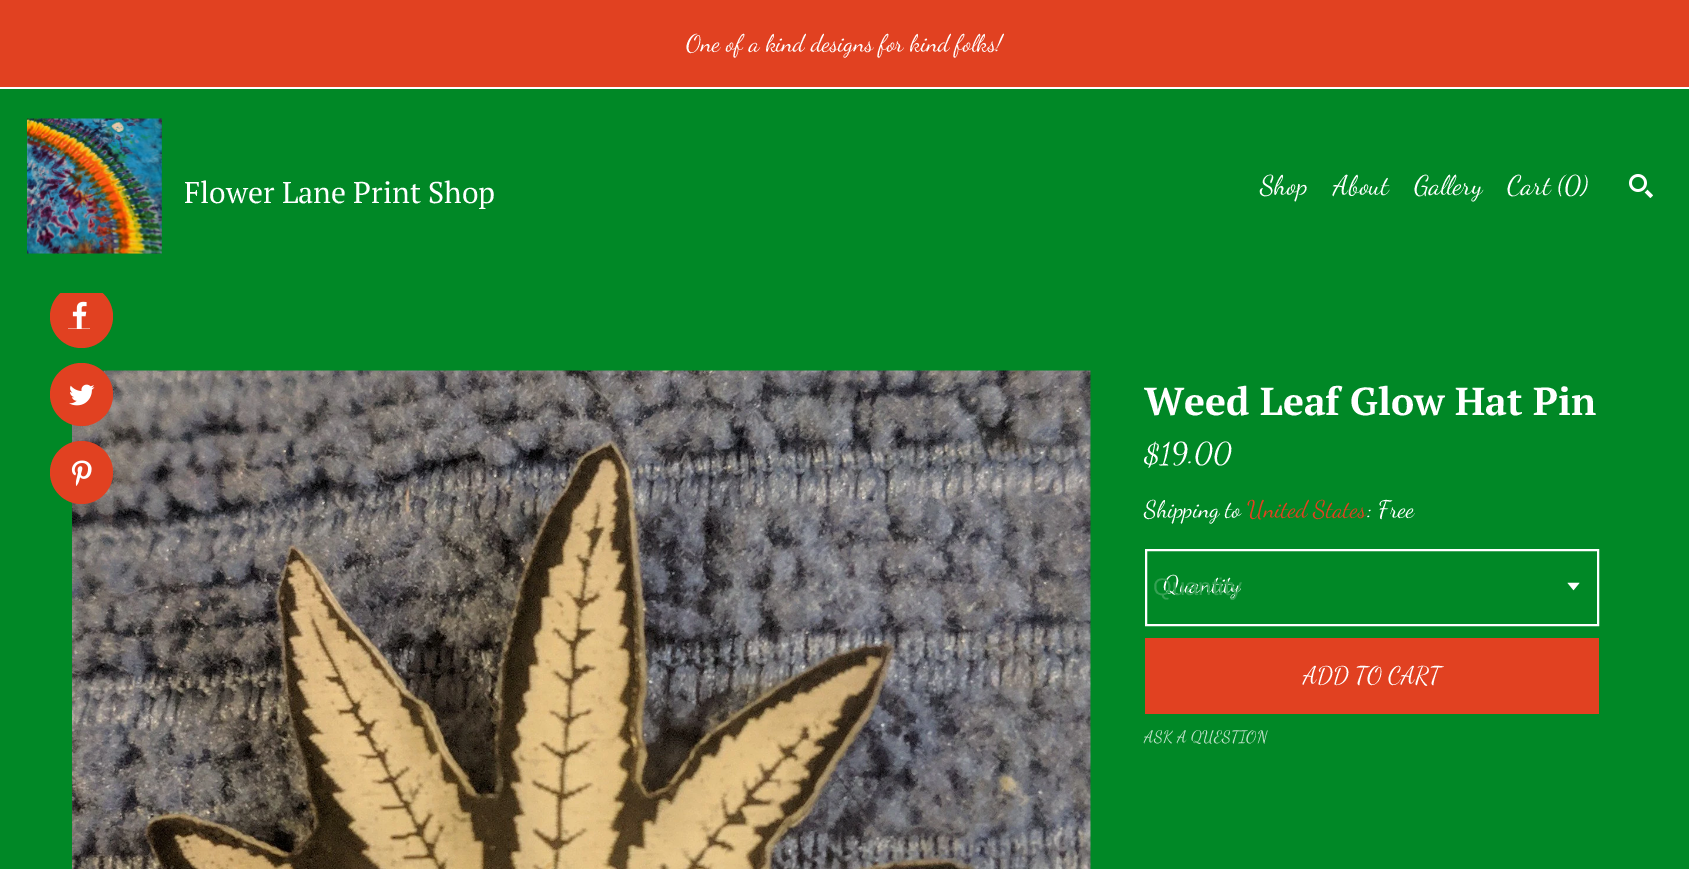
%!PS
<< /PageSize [1689 869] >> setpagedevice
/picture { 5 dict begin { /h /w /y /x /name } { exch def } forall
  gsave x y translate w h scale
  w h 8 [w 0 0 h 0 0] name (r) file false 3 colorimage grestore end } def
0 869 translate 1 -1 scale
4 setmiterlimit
0 0.533 0.149 setrgbcolor
0 0 1689 869 rectfill
0.882 0.255 0.129 setrgbcolor
0 0 1689 87 rectfill
1 setgray
0 87 1689 2 rectfill
/DancingScript-Regular [24 0 0 -24 0 0] selectfont
686 51 moveto (One of a kind designs for kind folks!) show
0.882 0.255 0.129 setrgbcolor
newpath 81.5 316.5 31.5 0 360 arc closepath fill
0 0.533 0.149 setrgbcolor
60 285 43 8 rectfill
(img1.rgb) 27 118 135 136 picture
/PTSerif-Regular [30 0 0 -30 0 0] selectfont
1 setgray
184 203 moveto (Flower Lane Print Shop) show
/DancingScript-Regular [27 0 0 -27 0 0] selectfont
1260 194 moveto (Shop) show
1333 194 moveto (About) show
1414 194 moveto (Gallery) show
1507 194 moveto (Cart \(0\)) show
(img2.rgb) 1629 174 24 24 picture
68 301 22 28 rectfill
(img3.rgb) 68 300 22 29 picture
(img6.rgb) 72 370 1019 499 picture
0.882 0.255 0.129 setrgbcolor
newpath 81.5 394.5 31.5 0 360 arc closepath fill
(img4.rgb) 69 384 26 22 picture
newpath 81.5 472.5 31.5 0 360 arc closepath fill
(img5.rgb) 71 460 21 26 picture
/PTSerif-Bold [39 0 0 -39 0 0] selectfont
1 setgray
1144 415 moveto (Weed Leaf Glow Hat Pin) show
/DancingScript-Regular [30 0 0 -30 0 0] selectfont
1144 463 moveto ($19.00) show
/DancingScript-Regular [24 0 0 -24 0 0] selectfont
1144 517 moveto (Shipping to) show
0.882 0.255 0.129 setrgbcolor
1247 517 moveto (United States) show
1 setgray
1367 517 moveto (: Free) show
2 setlinewidth
1146 550 452 75 rectstroke
1163 592 moveto (Quantity) show
/LiberationSans-Regular [24 0 0 -24 0 0] selectfont
0.208 0.631 0.325 setrgbcolor
1153 595 moveto (Quantity) show
(img7.rgb) 1567 582 13 9 picture
0.882 0.255 0.129 setrgbcolor
1145 638 454 76 rectfill
/DancingScript-Regular [24 0 0 -24 0 0] selectfont
1 setgray
1303 683 moveto (ADD TO CART) show
/DancingScript-Regular [16.5 0 0 -16.5 0 0] selectfont
0.749 0.882 0.788 setrgbcolor
1144 742 moveto (ASK A QUESTION) show
showpage
